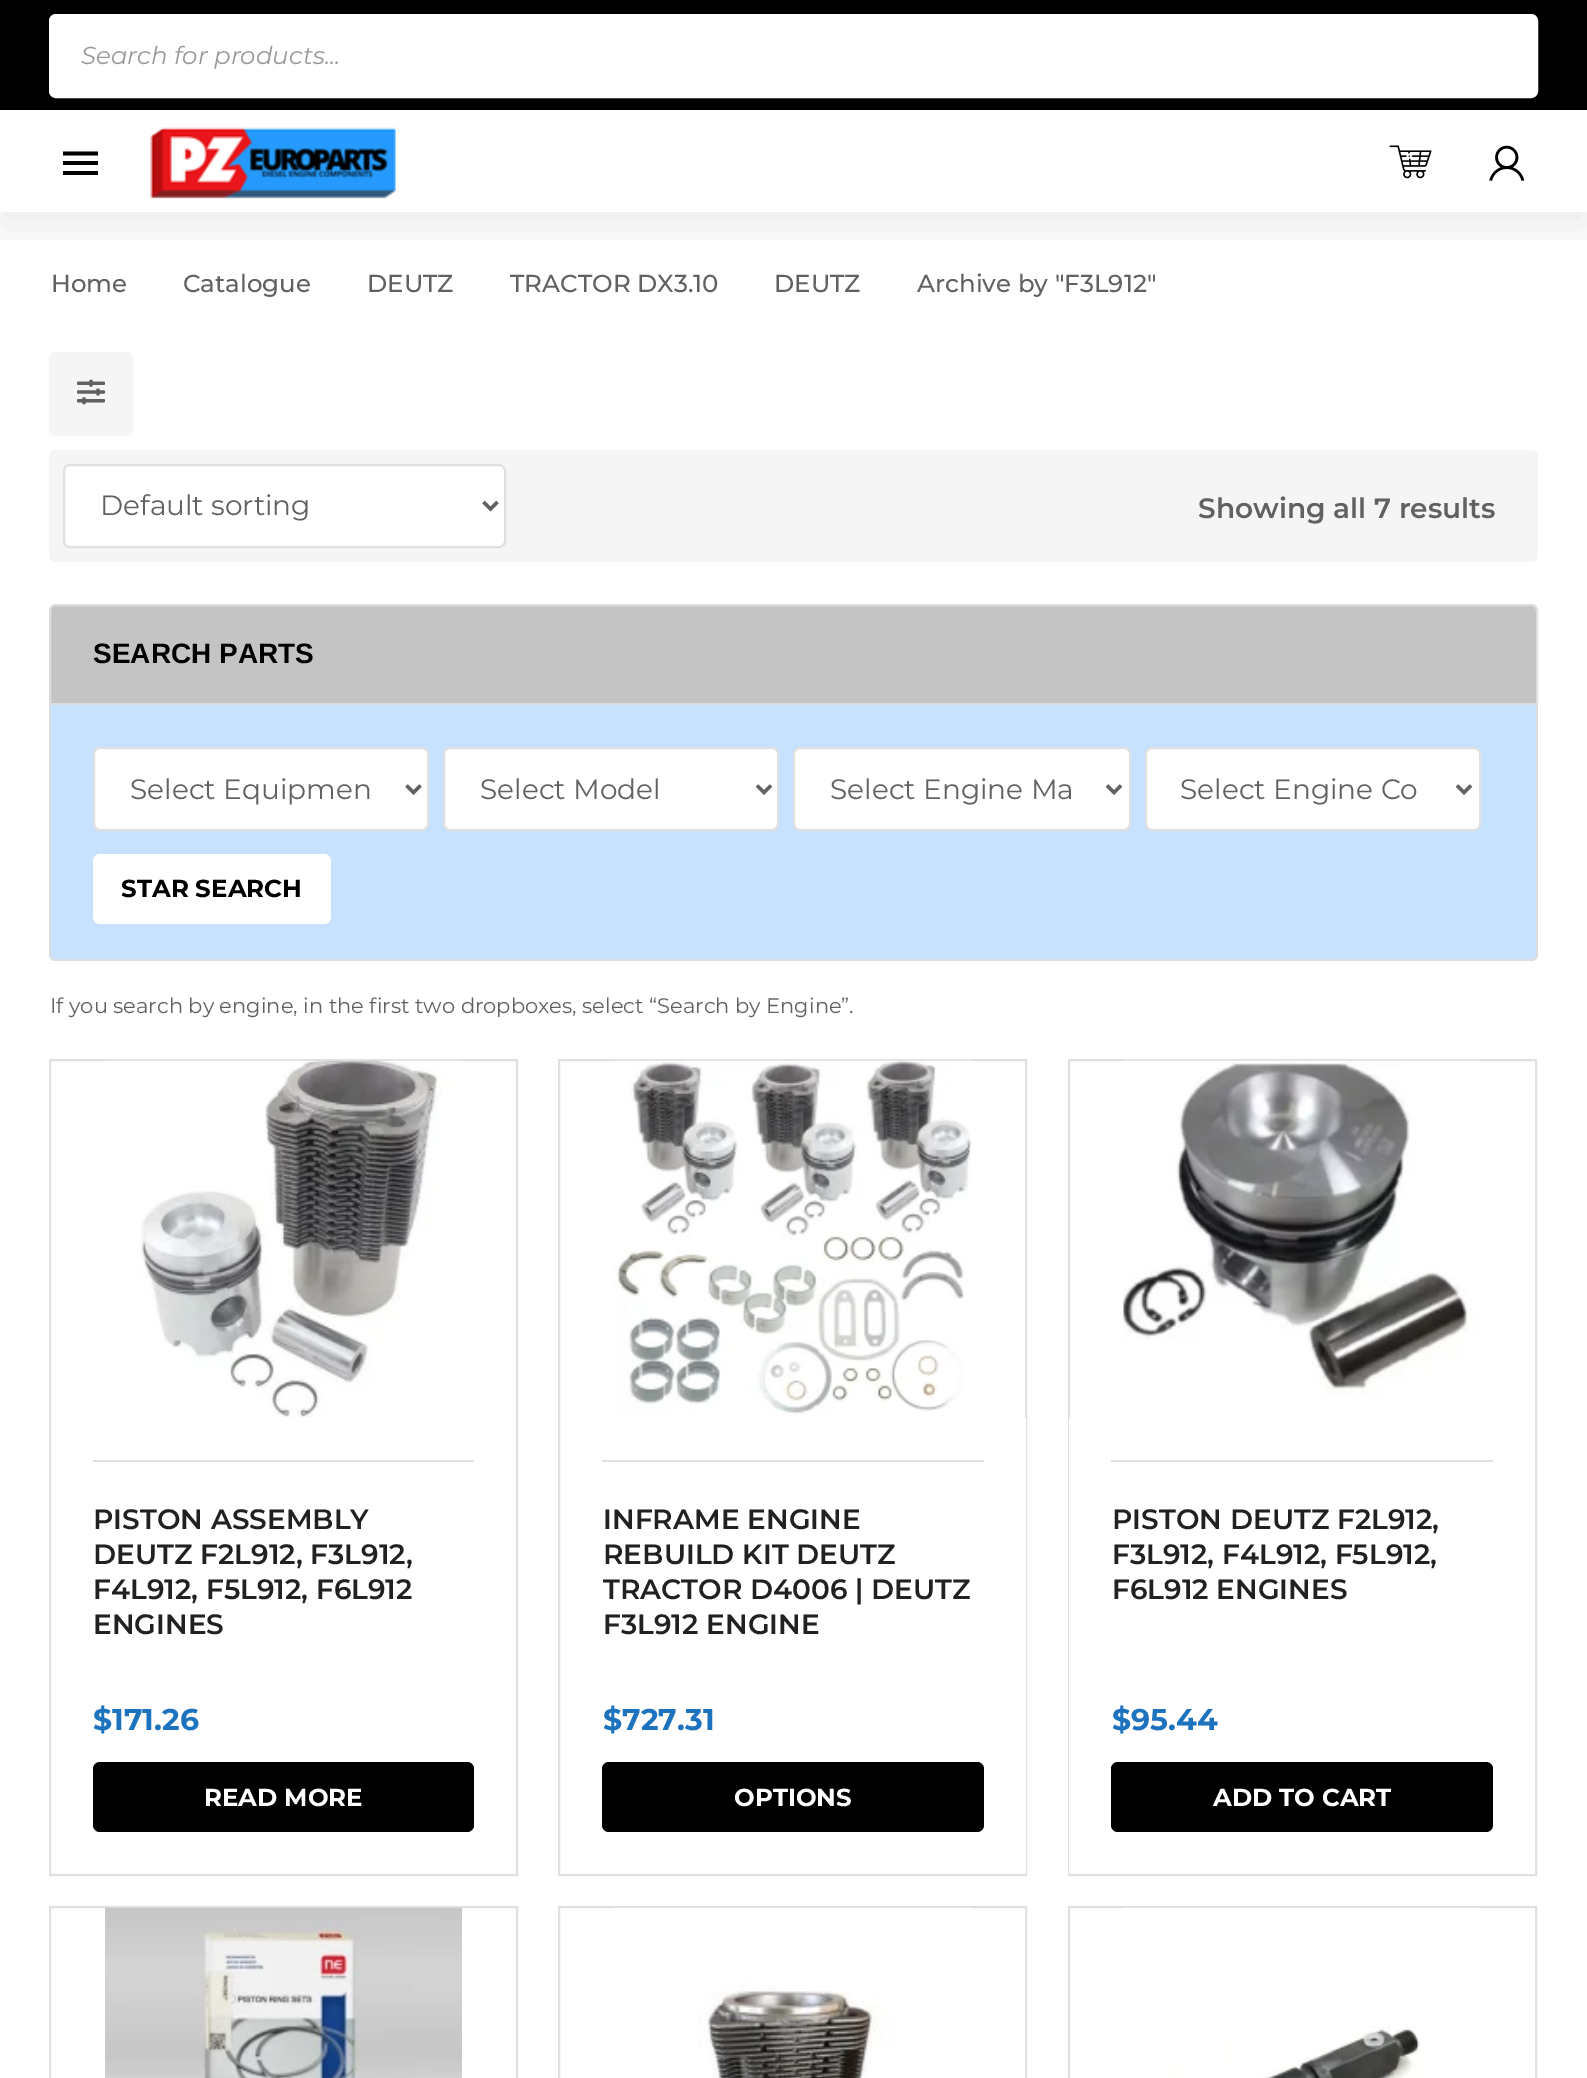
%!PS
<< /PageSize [1587 2078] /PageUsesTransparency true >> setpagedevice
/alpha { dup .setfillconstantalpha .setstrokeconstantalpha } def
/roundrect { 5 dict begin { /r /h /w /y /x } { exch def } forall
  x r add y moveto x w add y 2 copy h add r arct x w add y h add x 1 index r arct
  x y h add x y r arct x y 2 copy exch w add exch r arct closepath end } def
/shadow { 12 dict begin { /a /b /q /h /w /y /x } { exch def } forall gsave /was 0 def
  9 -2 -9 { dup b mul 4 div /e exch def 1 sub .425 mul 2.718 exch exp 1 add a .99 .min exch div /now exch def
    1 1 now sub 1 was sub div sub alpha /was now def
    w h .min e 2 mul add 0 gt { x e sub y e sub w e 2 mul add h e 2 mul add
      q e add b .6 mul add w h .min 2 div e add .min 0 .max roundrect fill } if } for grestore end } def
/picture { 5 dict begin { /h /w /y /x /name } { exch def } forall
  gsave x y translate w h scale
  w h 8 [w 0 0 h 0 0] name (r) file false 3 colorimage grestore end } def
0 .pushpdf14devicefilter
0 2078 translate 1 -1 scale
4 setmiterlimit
1 setgray
0 0 1587 2078 rectfill
gsave
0 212 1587 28 rectclip
0 setgray
0 14 1587 212 0 21 0.08 shadow
grestore
0 setgray
0 0 1587 110 rectfill
1 setgray
51 16 1485 80 5 roundrect gsave fill grestore
4 setlinewidth
stroke
/Montserrat-Italic [24.5 0 0 -24.5 0 0] selectfont
0.6 setgray
81 64 moveto (Search for products...) show
0 setgray
newpath 63 175 moveto 98 175 lineto 98 171 lineto 63 171 lineto closepath 63 165 moveto 98 165 lineto 98 161 lineto 63 161 lineto closepath 63 151.5 moveto 63 155.5 lineto 98 155.5 lineto 98 151.5 lineto closepath fill
(img1.rgb) 150 127 246 72 picture
(img2.rgb) 1389 145 43 34 picture
(img3.rgb) 1489 145 36 36 picture
/Montserrat-Medium [24.5 0 0 -24.5 0 0] selectfont
0.38 setgray
51 292 moveto (Home) show
183 292 moveto (Catalogue) show
367 292 moveto (DEUTZ) show
510 292 moveto (TRACTOR DX3.10) show
774 292 moveto (DEUTZ) show
917 292 moveto (Archive by "F3L912") show
0.961 setgray
49 352 84 84 7 roundrect fill
(img4.rgb) 77 379 28 26 picture
49 450 1489 112 7 roundrect fill
1 setgray
64 465 441 82 6 roundrect gsave fill grestore
0.878 setgray
2 setlinewidth
stroke
0.38 setgray
3.5 setlinewidth
newpath 483.5 502 moveto 490.5 509 lineto 497.5 502 lineto stroke
/Montserrat-Regular [28 0 0 -28 0 0] selectfont
100 515 moveto (Default sorting) show
/Montserrat-SemiBold [28 0 0 -28 0 0] selectfont
1198 518 moveto (Showing all 7 results) show
0.769 setgray
newpath 56 605 moveto 1531 605 lineto 1534.5 605 1537 607.5 1537 611 curveto 1537 704 lineto 50 704 lineto 50 611 lineto 50 607.5 52.5 605 56 605 curveto closepath gsave fill grestore
0.859 0.871 0.882 setrgbcolor
2 setlinewidth
stroke
/LiberationSans-Bold [28 0 0 -28 0 0] selectfont
0 setgray
93 663 moveto (SEARCH PARTS) show
0.78 0.886 1 setrgbcolor
newpath 49 705 moveto 1538 705 lineto 1538 954 lineto 1538 958 1535 961 1531 961 curveto 56 961 lineto 52 961 49 958 49 954 curveto closepath fill
0.859 0.871 0.882 setrgbcolor
newpath 49 705 moveto 1538 705 lineto 1538 954 lineto 1538 958 1535 961 1531 961 curveto 56 961 lineto 52 961 49 958 49 954 curveto closepath 51 705 moveto 1536 705 lineto 1536 954 lineto 1536 957 1534 959 1531 959 curveto 56 959 lineto 53 959 51 957 51 954 curveto closepath eofill
1 setgray
94 748 334 82 6 roundrect gsave fill grestore
0.878 setgray
stroke
0.38 setgray
3.5 setlinewidth
newpath 406.5 785.5 moveto 413.5 792.5 lineto 420.5 785.5 lineto stroke
/Montserrat-Regular [28 0 0 -28 0 0] selectfont
130 799 moveto (Select Equipmen) show
1 setgray
444 748 334 82 6 roundrect gsave fill grestore
0.878 setgray
2 setlinewidth
stroke
0.38 setgray
3.5 setlinewidth
newpath 757 785.5 moveto 764 792.5 lineto 771 785.5 lineto stroke
480 799 moveto (Select Model) show
1 setgray
794 748 336 82 6 roundrect gsave fill grestore
0.878 setgray
2 setlinewidth
stroke
0.38 setgray
3.5 setlinewidth
newpath 1107 785.5 moveto 1114 792.5 lineto 1121 785.5 lineto stroke
830 799 moveto (Select Engine Ma) show
1 setgray
1146 748 334 82 6 roundrect gsave fill grestore
0.878 setgray
2 setlinewidth
stroke
0.38 setgray
3.5 setlinewidth
newpath 1457 785.5 moveto 1464 792.5 lineto 1471 785.5 lineto stroke
1180 799 moveto (Select Engine Co) show
1 setgray
93 854 238 70 7 roundrect fill
/Montserrat-Bold [24.5 0 0 -24.5 0 0] selectfont
0 setgray
121 897 moveto (STAR SEARCH) show
/Montserrat-Regular [21 0 0 -21 0 0] selectfont
0.38 setgray
50 1013 moveto (If you search by engine, in the first two dropboxes, select “Search by Engine”.) show
0.878 setgray
2 setlinewidth
50 1060 467 815 rectstroke
(img5.rgb) 105 1060 357 357 picture
93 1460 381 2 rectfill
/Montserrat-SemiBold [28 0 0 -28 0 0] selectfont
0.129 setgray
93 1529 moveto (PISTON ASSEMBLY) show
93 1564 moveto (DEUTZ F2L912, F3L912,) show
93 1599 moveto (F4L912, F5L912, F6L912) show
93 1634 moveto (ENGINES) show
/Montserrat-Bold [30 0 0 -30 0 0] selectfont
0.118 0.451 0.745 setrgbcolor
93 1730 moveto ($171.26) show
0 setgray
93 1762 381 70 7 roundrect fill
/Montserrat-Bold [24.5 0 0 -24.5 0 0] selectfont
1 setgray
204 1806 moveto (READ MORE) show
0.878 setgray
559 1060 467 815 rectstroke
(img6.rgb) 614 1060 358 355 picture
1 setgray
1025 1418 1 456 rectfill
0.878 setgray
602 1460 382 2 rectfill
/Montserrat-SemiBold [28 0 0 -28 0 0] selectfont
0.129 setgray
603 1529 moveto (INFRAME ENGINE) show
603 1564 moveto (REBUILD KIT DEUTZ) show
603 1599 moveto (TRACTOR D4006 | DEUTZ) show
603 1634 moveto (F3L912 ENGINE) show
/Montserrat-Bold [30 0 0 -30 0 0] selectfont
0.118 0.451 0.745 setrgbcolor
603 1730 moveto ($727.31) show
0 setgray
602 1762 382 70 7 roundrect fill
/Montserrat-Bold [24.5 0 0 -24.5 0 0] selectfont
1 setgray
734 1806 moveto (OPTIONS) show
0.878 setgray
1069 1060 467 815 rectstroke
(img7.rgb) 1123 1060 357 336 picture
1 setgray
1069 1418 1 456 rectfill
0.878 setgray
1111 1460 382 2 rectfill
/Montserrat-SemiBold [28 0 0 -28 0 0] selectfont
0.129 setgray
1112 1529 moveto (PISTON DEUTZ F2L912,) show
1112 1564 moveto (F3L912, F4L912, F5L912,) show
1112 1599 moveto (F6L912 ENGINES) show
/Montserrat-Bold [30 0 0 -30 0 0] selectfont
0.118 0.451 0.745 setrgbcolor
1112 1730 moveto ($95.44) show
0 setgray
1111 1762 382 70 7 roundrect fill
/Montserrat-Bold [24.5 0 0 -24.5 0 0] selectfont
1 setgray
1213 1806 moveto (ADD TO CART) show
0.878 setgray
50 1907 467 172 rectstroke
(img8.rgb) 105 1907 357 171 picture
559 1907 467 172 rectstroke
(img9.rgb) 614 1907 357 171 picture
1069 1907 467 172 rectstroke
(img10.rgb) 1124 1907 356 171 picture
.poppdf14devicefilter showpage
